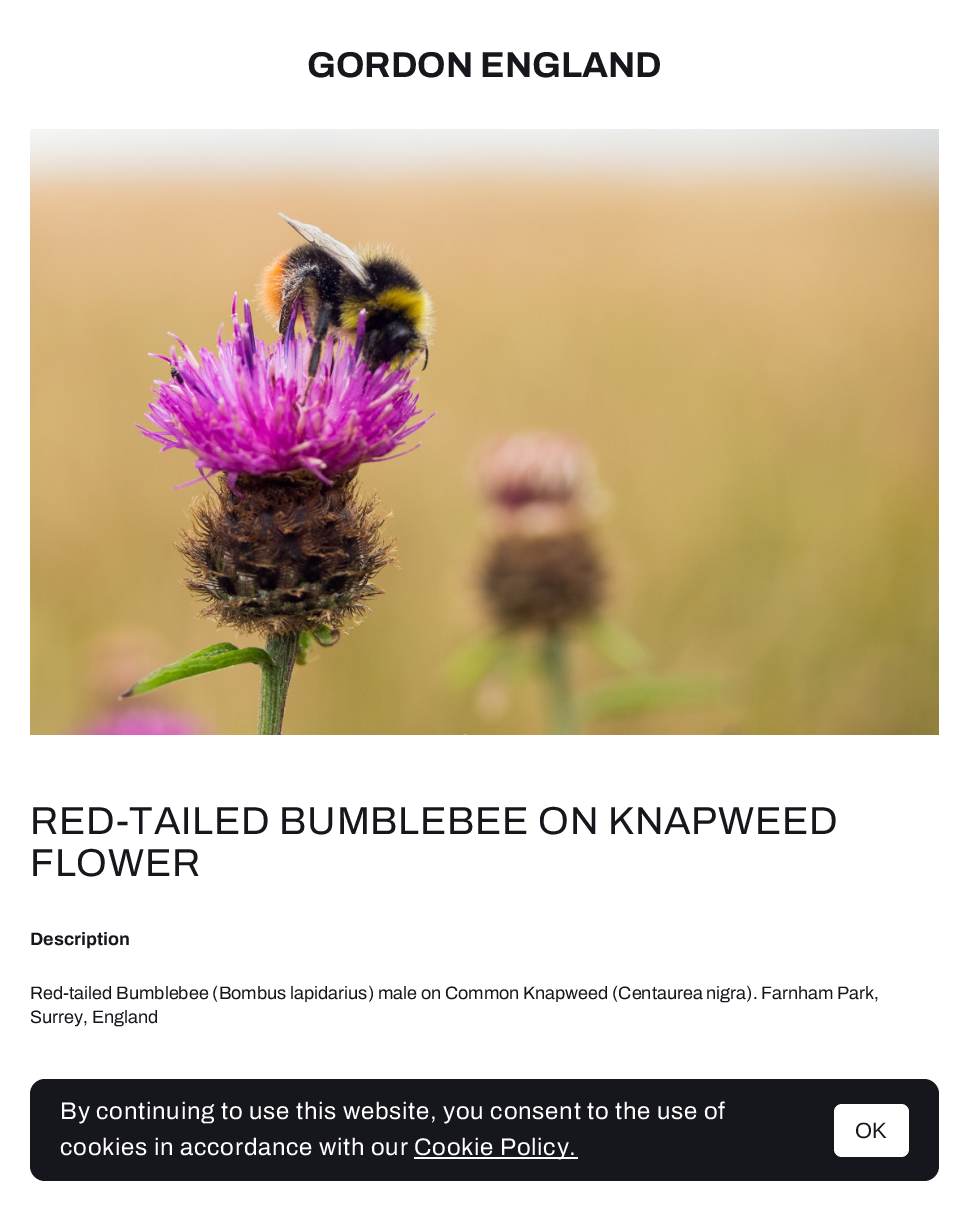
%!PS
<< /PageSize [969 1232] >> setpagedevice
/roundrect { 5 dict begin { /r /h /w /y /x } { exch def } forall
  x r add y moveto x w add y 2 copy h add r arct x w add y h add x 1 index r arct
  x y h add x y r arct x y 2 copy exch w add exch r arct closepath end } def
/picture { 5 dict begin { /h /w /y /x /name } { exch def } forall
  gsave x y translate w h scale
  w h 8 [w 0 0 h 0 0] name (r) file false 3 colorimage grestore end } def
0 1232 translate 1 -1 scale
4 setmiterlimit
1 setgray
0 0 969 1232 rectfill
/Archivo-Bold [36 0 0 -36 0 0] selectfont
0.086 0.086 0.114 setrgbcolor
307 77 moveto (GORDON ENGLAND) show
(img1.rgb) 30 129 909 606 picture
/Archivo-Regular [39 0 0 -39 0 0] selectfont
30 834 moveto 0.75 0 (RED-TAILED BUMBLEBEE ON KNAPWEED) ashow
30 876 moveto 0.75 0 (FLOWER) ashow
/Archivo-Bold [18 0 0 -18 0 0] selectfont
30 945 moveto (Description) show
/Archivo-Regular [18 0 0 -18 0 0] selectfont
30 999 moveto (Red-tailed Bumblebee \(Bombus lapidarius\) male on Common Knapweed \(Centaurea nigra\). Farnham Park,) show
30 1023 moveto (Surrey, England) show
30 1079 909 102 15 roundrect fill
/Archivo-Regular [24 0 0 -24 0 0] selectfont
1 setgray
60 1119 moveto 0.75 0 (By continuing to use this website, you consent to the use of) ashow
60 1155 moveto 0.75 0 (cookies in accordance with our) ashow
414 1157 164 2 rectfill
414 1155 moveto 0.75 0 (Cookie Policy.) ashow
834 1104 75 53 8 roundrect fill
/LiberationSans-Regular [22 0 0 -22 0 0] selectfont
0.086 0.086 0.114 setrgbcolor
855 1138 moveto (OK) show
showpage
